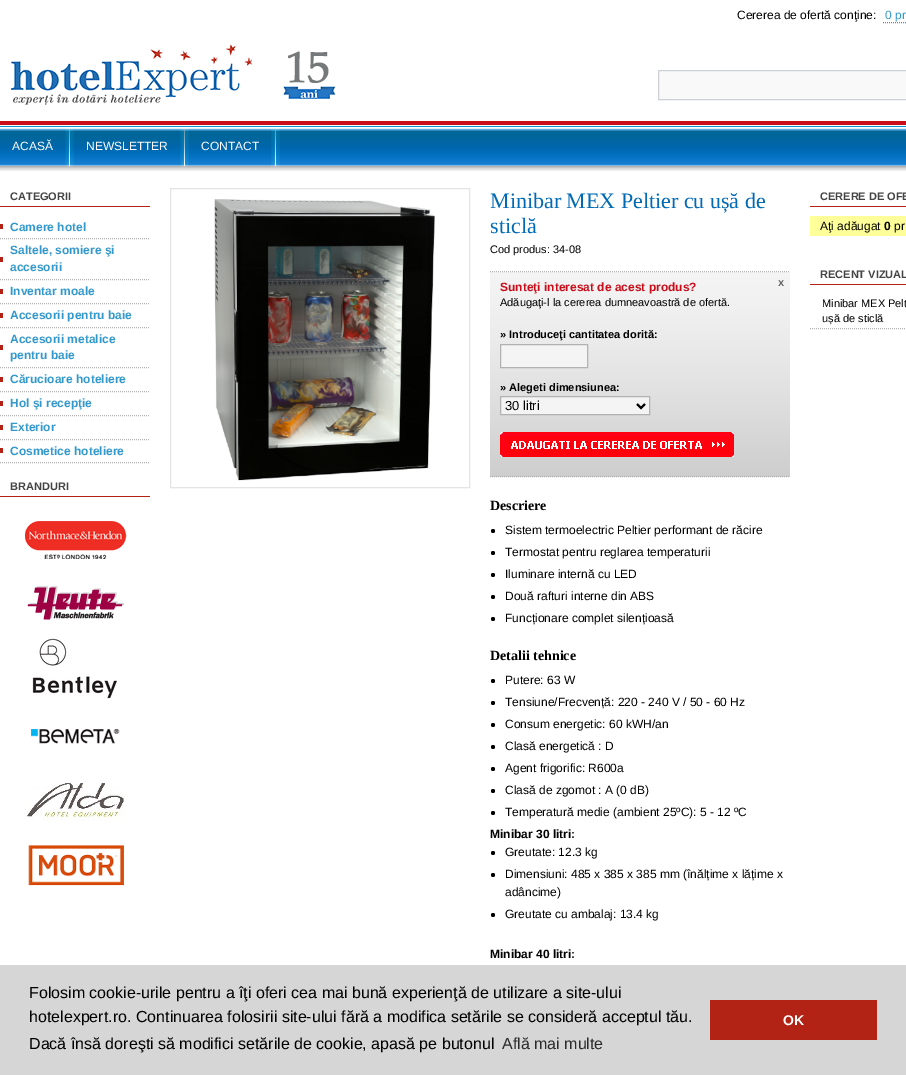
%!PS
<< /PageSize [906 1075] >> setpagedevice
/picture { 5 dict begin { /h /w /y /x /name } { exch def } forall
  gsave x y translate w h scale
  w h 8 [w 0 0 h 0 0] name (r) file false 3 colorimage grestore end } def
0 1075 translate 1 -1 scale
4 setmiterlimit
1 setgray
0 0 906 1075 rectfill
/LiberationSans-Regular [12 0 0 -12 0 0] selectfont
0 setgray
737 19 moveto (Cererea de ofertă conţine:) show
0.2 0.6 0.8 setrgbcolor
885 19 moveto (0 pr) show
[1 1] 0 setdash
newpath 883 22.5 moveto 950 22.5 lineto stroke
(img1.rgb) 10 44 326 61 picture
0.976 setgray
newpath 658.5 70.5 moveto 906.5 70.5 lineto 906.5 99.5 lineto 658.5 99.5 lineto closepath gsave fill grestore
0.808 0.82 0.835 setrgbcolor
[] 0 setdash
stroke
(img2.rgb) 0 121 906 50 picture
(img3.rgb) 65 126 9 42 picture
1 setgray
12 150 moveto (ACASĂ) show
(img3.rgb) 180 126 9 42 picture
86 150 moveto (NEWSLETTER) show
(img3.rgb) 271 126 9 42 picture
201 150 moveto (CONTACT) show
0.698 0.137 0.082 setrgbcolor
0 206 150 1 rectfill
/LiberationSans-Bold [11 0 0 -11 0 0] selectfont
0.267 setgray
10 200 moveto (CATEGORII) show
0.698 setgray
[1 1] 0 setdash
newpath 0 238.5 moveto 150 238.5 lineto stroke
0.698 0.137 0.082 setrgbcolor
0 224 3 5 rectfill
/LiberationSans-Bold [12 0 0 -12 0 0] selectfont
0.2 0.6 0.8 setrgbcolor
10 231 moveto (Camere hotel) show
0.698 setgray
newpath 0 279.5 moveto 150 279.5 lineto stroke
0.698 0.137 0.082 setrgbcolor
0 257 3 5 rectfill
0.2 0.6 0.8 setrgbcolor
10 254 moveto (Saltele, somiere şi) show
10 271 moveto (accesorii) show
0.698 setgray
newpath 0 303.5 moveto 150 303.5 lineto stroke
0.698 0.137 0.082 setrgbcolor
0 289 3 5 rectfill
0.2 0.6 0.8 setrgbcolor
10 295 moveto (Inventar moale) show
0.698 setgray
newpath 0 327.5 moveto 150 327.5 lineto stroke
0.698 0.137 0.082 setrgbcolor
0 313 3 5 rectfill
0.2 0.6 0.8 setrgbcolor
10 319 moveto (Accesorii pentru baie) show
0.698 setgray
newpath 0 367.5 moveto 150 367.5 lineto stroke
0.698 0.137 0.082 setrgbcolor
0 345 3 5 rectfill
0.2 0.6 0.8 setrgbcolor
10 343 moveto (Accesorii metalice) show
10 359 moveto (pentru baie) show
0.698 setgray
newpath 0 391.5 moveto 150 391.5 lineto stroke
0.698 0.137 0.082 setrgbcolor
0 377 3 5 rectfill
0.2 0.6 0.8 setrgbcolor
10 383 moveto (Cărucioare hoteliere) show
0.698 setgray
newpath 0 415.5 moveto 150 415.5 lineto stroke
0.698 0.137 0.082 setrgbcolor
0 401 3 5 rectfill
0.2 0.6 0.8 setrgbcolor
10 407 moveto (Hol şi recepţie) show
0.698 setgray
newpath 0 439.5 moveto 150 439.5 lineto stroke
0.698 0.137 0.082 setrgbcolor
0 425 3 5 rectfill
0.2 0.6 0.8 setrgbcolor
10 431 moveto (Exterior) show
0.698 setgray
newpath 0 462.5 moveto 150 462.5 lineto stroke
0.698 0.137 0.082 setrgbcolor
0 448 3 5 rectfill
0.2 0.6 0.8 setrgbcolor
10 455 moveto (Cosmetice hoteliere) show
0.698 0.137 0.082 setrgbcolor
0 496 150 1 rectfill
/LiberationSans-Bold [11 0 0 -11 0 0] selectfont
0.267 setgray
10 490 moveto (BRANDURI) show
(img4.rgb) 25 521 102 38 picture
(img5.rgb) 27 586 98 34 picture
(img6.rgb) 32 638 85 61 picture
(img7.rgb) 31 729 89 15 picture
(img8.rgb) 24 781 102 41 picture
(img9.rgb) 28 845 96 41 picture
0.894 setgray
[] 0 setdash
170.5 188.5 299 299 rectstroke
(img10.rgb) 214 199 221 282 picture
/LiberationSerif-Regular [22 0 0 -22 0 0] selectfont
0 0.416 0.71 setrgbcolor
490 208 moveto (Minibar MEX Peltier cu ușă de) show
490 233 moveto (sticlă) show
/LiberationSans-Regular [11 0 0 -11 0 0] selectfont
0 setgray
490 253 moveto (Cod produs: 34-08) show
(img11.rgb) 490 272 300 205 picture
0.698 setgray
[1 1] 0 setdash
newpath 490 271.5 moveto 790 271.5 lineto stroke
newpath 490 476.5 moveto 790 476.5 lineto stroke
/LiberationSans-Bold [12 0 0 -12 0 0] selectfont
0.792 0.051 0.102 setrgbcolor
500 291 moveto (Sunteţi interesat de acest produs?) show
/LiberationSans-Bold [11 0 0 -11 0 0] selectfont
0.4 setgray
778 286 moveto (x) show
/LiberationSans-Regular [11 0 0 -11 0 0] selectfont
0 setgray
500 306 moveto (Adăugaţi-l la cererea dumneavoastră de ofertă.) show
/LiberationSans-Bold [11 0 0 -11 0 0] selectfont
500 338 moveto (» Introduceţi cantitatea dorită:) show
0.957 setgray
newpath 500.5 344.5 moveto 587.5 344.5 lineto 587.5 367.5 lineto 500.5 367.5 lineto closepath gsave fill grestore
0.698 setgray
[] 0 setdash
stroke
0 setgray
500 391 moveto (» Alegeti dimensiunea:) show
0.957 setgray
newpath 500.5 396.5 moveto 649.5 396.5 lineto 649.5 414.5 lineto 500.5 414.5 lineto closepath gsave fill grestore
0.698 setgray
stroke
0 setgray
2 setlinewidth
newpath 637 404 moveto 641 408 lineto 645 404 lineto stroke
/LiberationSans-Regular [13 0 0 -13 0 0] selectfont
505 410 moveto (30 litri) show
(img12.rgb) 500 432 234 25 picture
/LiberationSerif-Bold [14 0 0 -14 0 0] selectfont
490 510 moveto (Descriere) show
newpath 493 531 2 0 360 arc closepath fill
/LiberationSans-Regular [12 0 0 -12 0 0] selectfont
505 534 moveto (Sistem termoelectric Peltier performant de răcire) show
newpath 493 553 2 0 360 arc closepath fill
505 556 moveto (Termostat pentru reglarea temperaturii) show
newpath 493 575 2 0 360 arc closepath fill
505 578 moveto (Iluminare internă cu LED) show
newpath 493 597 2 0 360 arc closepath fill
505 600 moveto (Două rafturi interne din ABS) show
newpath 493 619 2 0 360 arc closepath fill
505 622 moveto (Funcționare complet silențioasă) show
/LiberationSerif-Bold [14 0 0 -14 0 0] selectfont
490 660 moveto (Detalii tehnice) show
newpath 493 681 2 0 360 arc closepath fill
/LiberationSans-Regular [12 0 0 -12 0 0] selectfont
505 684 moveto (Putere: 63 W) show
newpath 493 703 2 0 360 arc closepath fill
505 706 moveto (Tensiune/Frecvență: 220 - 240 V / 50 - 60 Hz) show
newpath 493 725 2 0 360 arc closepath fill
505 728 moveto (Consum energetic: 60 kWH/an) show
newpath 493 747 2 0 360 arc closepath fill
505 750 moveto (Clasă energetică : D) show
newpath 493 769 2 0 360 arc closepath fill
505 772 moveto (Agent frigorific: R600a) show
newpath 493 791 2 0 360 arc closepath fill
505 794 moveto (Clasă de zgomot : A \(0 dB\)) show
newpath 493 813 2 0 360 arc closepath fill
505 816 moveto (Temperatură medie \(ambient 25ºC\): 5 - 12 ºC) show
/LiberationSans-Bold [12 0 0 -12 0 0] selectfont
490 838 moveto (Minibar 30 litri:) show
newpath 493 853 2 0 360 arc closepath fill
/LiberationSans-Regular [12 0 0 -12 0 0] selectfont
505 856 moveto (Greutate: 12.3 kg) show
newpath 493 875 2 0 360 arc closepath fill
505 878 moveto (Dimensiuni: 485 x 385 x 385 mm \(înălțime x lățime x) show
505 896 moveto (adâncime\)) show
newpath 493 915 2 0 360 arc closepath fill
505 918 moveto (Greutate cu ambalaj: 13.4 kg) show
/LiberationSans-Bold [12 0 0 -12 0 0] selectfont
490 958 moveto (Minibar 40 litri:) show
0.698 0.137 0.082 setrgbcolor
810 206 96 1 rectfill
/LiberationSans-Bold [11 0 0 -11 0 0] selectfont
0.267 setgray
820 200 moveto (CERERE DE OFE) show
1 1 0.6 setrgbcolor
810 216 96 20 rectfill
/LiberationSans-Regular [12 0 0 -12 0 0] selectfont
0 setgray
820 230 moveto (Aţi adăugat) show
/LiberationSans-Bold [12 0 0 -12 0 0] selectfont
884 230 moveto (0) show
/LiberationSans-Regular [12 0 0 -12 0 0] selectfont
894 230 moveto (pr) show
0.698 0.137 0.082 setrgbcolor
810 284 96 1 rectfill
/LiberationSans-Bold [11 0 0 -11 0 0] selectfont
0.267 setgray
820 278 moveto (RECENT VIZUAL) show
0.698 setgray
1 setlinewidth
[1 1] 0 setdash
newpath 810 328.5 moveto 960 328.5 lineto stroke
/LiberationSans-Regular [11 0 0 -11 0 0] selectfont
0 setgray
822 307 moveto (Minibar MEX Pelt) show
822 322 moveto (ușă de sticlă) show
0.839 setgray
0 965 906 110 rectfill
/LiberationSans-Regular [16 0 0 -16 0 0] selectfont
0 setgray
29 998 moveto (Folosim cookie-urile pentru a îţi oferi cea mai bună experienţă de utilizare a site-ului) show
29 1022 moveto (hotelexpert.ro. Continuarea folosirii site-ului fără a modifica setările se consideră acceptul tău.) show
29 1049 moveto (Dacă însă doreşti să modifici setările de cookie, apasă pe butonul) show
0.169 setgray
502 1049 moveto (Află mai multe) show
0.698 0.137 0.082 setrgbcolor
710 1000 167 40 rectfill
/LiberationSans-Bold [14 0 0 -14 0 0] selectfont
1 setgray
783 1025 moveto (OK) show
showpage
